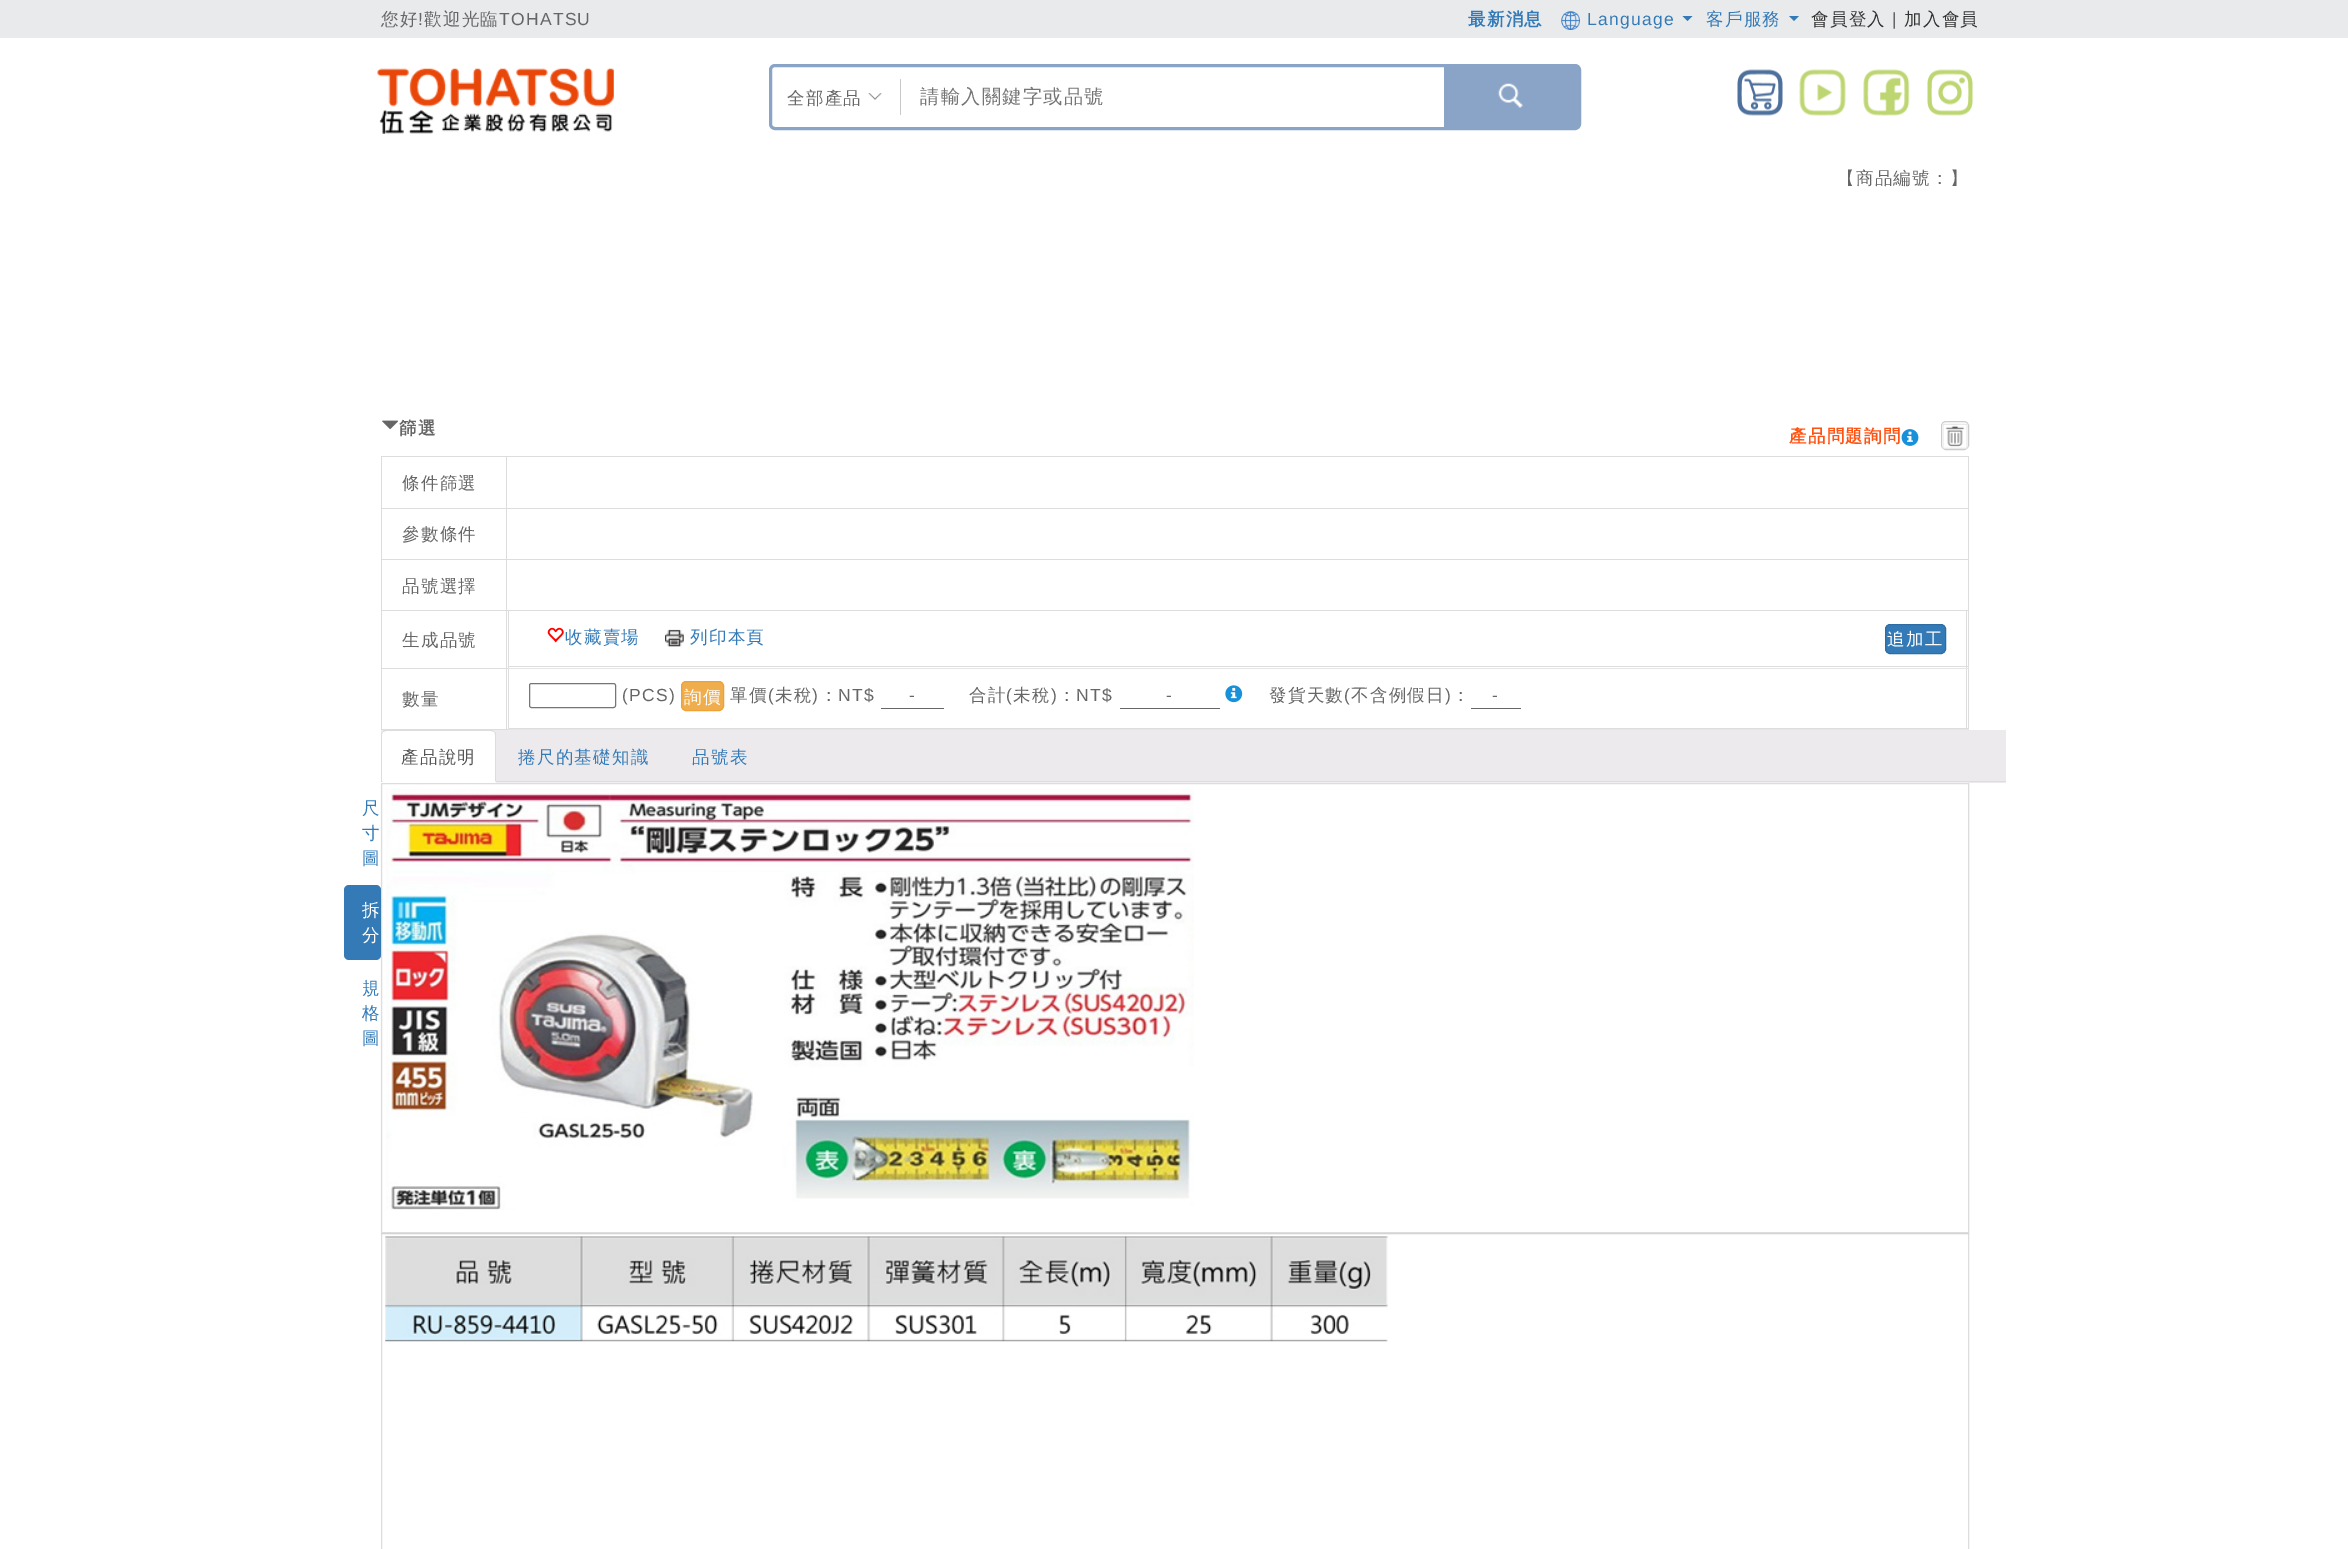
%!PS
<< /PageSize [2348 1549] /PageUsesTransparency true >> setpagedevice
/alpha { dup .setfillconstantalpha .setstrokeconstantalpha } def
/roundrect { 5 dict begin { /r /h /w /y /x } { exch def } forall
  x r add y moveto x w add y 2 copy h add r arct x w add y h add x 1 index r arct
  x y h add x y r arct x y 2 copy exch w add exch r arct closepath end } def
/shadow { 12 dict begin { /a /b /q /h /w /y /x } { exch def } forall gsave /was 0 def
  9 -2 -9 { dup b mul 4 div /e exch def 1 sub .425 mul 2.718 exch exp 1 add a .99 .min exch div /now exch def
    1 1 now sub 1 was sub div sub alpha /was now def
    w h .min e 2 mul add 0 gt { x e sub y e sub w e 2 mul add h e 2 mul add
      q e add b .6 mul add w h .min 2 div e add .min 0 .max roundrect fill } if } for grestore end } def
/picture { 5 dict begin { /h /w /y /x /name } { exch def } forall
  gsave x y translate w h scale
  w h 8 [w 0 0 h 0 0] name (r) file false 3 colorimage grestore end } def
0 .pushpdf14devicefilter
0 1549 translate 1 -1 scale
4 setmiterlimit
1 setgray
0 0 2348 1549 rectfill
0.914 0.918 0.925 setrgbcolor
0 0 2348 38 rectfill
/WenQuanYiZenHei-Medium [17.5 0 0 -17.5 0 0] selectfont
0.4 setgray
381 25 moveto 1.25 0 (您好) ashow
/LiberationSans-Regular [17.5 0 0 -17.5 0 0] selectfont
418 25 moveto 1.25 0 (!) ashow
/WenQuanYiZenHei-Medium [17.5 0 0 -17.5 0 0] selectfont
424 25 moveto 1.25 0 (歡迎光臨) ashow
/LiberationSans-Regular [17.5 0 0 -17.5 0 0] selectfont
499 25 moveto 1.25 0 (TOHATSU) ashow
/WenQuanYiZenHei-Bold [17.5 0 0 -17.5 0 0] selectfont
0.2 0.478 0.718 setrgbcolor
1468 25 moveto 1.25 0 (最新消息) ashow
(img1.rgb) 1561 11 19 19 picture
/LiberationSans-Regular [17.5 0 0 -17.5 0 0] selectfont
1587 25 moveto 1.25 0 (Language) ashow
newpath 1682.5 16 moveto 1692.5 16 lineto 1687.5 21 lineto closepath fill
/WenQuanYiZenHei-Medium [17.5 0 0 -17.5 0 0] selectfont
1706 25 moveto 1.25 0 (客戶服務) ashow
newpath 1789 16 moveto 1799 16 lineto 1794 21 lineto closepath fill
0.2 setgray
1811 25 moveto 1.25 0 (會員登入) ashow
/LiberationSans-Regular [17.5 0 0 -17.5 0 0] selectfont
0.4 setgray
1892 25 moveto 1.25 0 (|) ashow
/WenQuanYiZenHei-Medium [17.5 0 0 -17.5 0 0] selectfont
0.2 setgray
1904 25 moveto 1.25 0 (加入會員) ashow
(img2.rgb) 377 68 237 66 picture
0.541 0.643 0.78 setrgbcolor
3 setlinewidth
770.5 65.5 809 63 4.5 roundrect stroke
0.4 setgray
787 104 moveto 1.25 0 (全部產品) ashow
(img3.rgb) 868 93 14 7 picture
0.788 setgray
900 79 1 36 rectfill
/WenQuanYiZenHei-Medium [19.25 0 0 -19.25 0 0] selectfont
0.459 setgray
920 103 moveto 1.25 0 (請輸入關鍵字或品號) ashow
0.541 0.643 0.78 setrgbcolor
1444 67 134 60 rectfill
(img4.rgb) 1498 83 25 25 picture
(img5.rgb) 1737 69 46 47 picture
(img6.rgb) 1799 69 47 47 picture
(img7.rgb) 1863 69 47 47 picture
(img8.rgb) 1927 69 46 47 picture
/WenQuanYiZenHei-Medium [17.5 0 0 -17.5 0 0] selectfont
0.4 setgray
1837 184 moveto 1.25 0 (【商品編號：】) ashow
(img9.rgb) 382 420 17 9 picture
/WenQuanYiZenHei-Bold [17.5 0 0 -17.5 0 0] selectfont
399 434 moveto 1.25 0 (篩選) ashow
1 0.325 0.075 setrgbcolor
1789 442 moveto 1.25 0 (產品問題詢問) ashow
(img10.rgb) 1901 429 18 17 picture
0.8 setgray
1 setlinewidth
1941.5 421.5 27 28 4.5 roundrect stroke
(img11.rgb) 1942 423 26 26 picture
0.867 setgray
381 456 1588 1 rectfill
1968 456 1 274 rectfill
381 456 1 52 rectfill
506 610 1 120 rectfill
506 610 1463 1 rectfill
506 559 1 52 rectfill
506 559 1463 1 rectfill
506 508 1 52 rectfill
506 508 1463 1 rectfill
506 456 1 53 rectfill
381 729 127 1 rectfill
381 668 1 62 rectfill
381 668 127 1 rectfill
381 610 1 59 rectfill
381 610 127 1 rectfill
381 559 1 52 rectfill
381 559 127 1 rectfill
381 508 1 52 rectfill
381 508 127 1 rectfill
/WenQuanYiZenHei-Medium [17.5 0 0 -17.5 0 0] selectfont
0.4 setgray
402 489 moveto 1.25 0 (條件篩選) ashow
402 540 moveto 1.25 0 (參數條件) ashow
402 592 moveto 1.25 0 (品號選擇) ashow
0.898 setgray
508 668 1461 1 rectfill
0.4 setgray
402 646 moveto 1.25 0 (生成品號) ashow
0.867 setgray
1966 611 1 57 rectfill
508 666 1460 1 rectfill
508 611 1 57 rectfill
(img12.rgb) 547 627 17 16 picture
0.2 0.478 0.718 setrgbcolor
565 643 moveto 1.25 0 (收藏賣場) ashow
(img13.rgb) 665 629 19 18 picture
690 643 moveto 1.25 0 (列印本頁) ashow
1885.5 624.5 60 29 4.5 roundrect gsave fill grestore
0.18 0.427 0.643 setrgbcolor
stroke
1 setgray
1887 645 moveto 1.25 0 (追加工) ashow
0.898 setgray
508 729 1461 1 rectfill
0.4 setgray
402 705 moveto 1.25 0 (數量) ashow
0.867 setgray
1966 669 1 60 rectfill
508 728 1460 1 rectfill
508 669 1 60 rectfill
0.463 setgray
529.5 683.5 86 24 2 roundrect stroke
/LiberationSans-Regular [17.5 0 0 -17.5 0 0] selectfont
0.4 setgray
622 701 moveto 1.25 0 (\(PCS\)) ashow
0.941 0.678 0.306 setrgbcolor
681.5 681.5 42 29 4.5 roundrect gsave fill grestore
0.933 0.635 0.212 setrgbcolor
stroke
/WenQuanYiZenHei-Medium [17.5 0 0 -17.5 0 0] selectfont
1 setgray
684 703 moveto 1.25 0 (詢價) ashow
0.4 setgray
730 701 moveto 1.25 0 (單價) ashow
/LiberationSans-Regular [17.5 0 0 -17.5 0 0] selectfont
768 701 moveto 1.25 0 (\() ashow
/WenQuanYiZenHei-Medium [17.5 0 0 -17.5 0 0] selectfont
775 701 moveto 1.25 0 (未稅) ashow
/LiberationSans-Regular [17.5 0 0 -17.5 0 0] selectfont
812 701 moveto 1.25 0 (\)) ashow
/WenQuanYiZenHei-Medium [17.5 0 0 -17.5 0 0] selectfont
820 701 moveto 1.25 0 (：) ashow
/LiberationSans-Regular [17.5 0 0 -17.5 0 0] selectfont
838 701 moveto 1.25 0 (NT$) ashow
881 708 63 1 rectfill
909 701 moveto 1.25 0 (-) ashow
/WenQuanYiZenHei-Medium [17.5 0 0 -17.5 0 0] selectfont
969 701 moveto 1.25 0 (合計) ashow
/LiberationSans-Regular [17.5 0 0 -17.5 0 0] selectfont
1006 701 moveto 1.25 0 (\() ashow
/WenQuanYiZenHei-Medium [17.5 0 0 -17.5 0 0] selectfont
1013 701 moveto 1.25 0 (未稅) ashow
/LiberationSans-Regular [17.5 0 0 -17.5 0 0] selectfont
1051 701 moveto 1.25 0 (\)) ashow
/WenQuanYiZenHei-Medium [17.5 0 0 -17.5 0 0] selectfont
1058 701 moveto 1.25 0 (：) ashow
/LiberationSans-Regular [17.5 0 0 -17.5 0 0] selectfont
1076 701 moveto 1.25 0 (NT$) ashow
1120 708 100 1 rectfill
1166 701 moveto 1.25 0 (-) ashow
(img14.rgb) 1225 685 18 18 picture
/WenQuanYiZenHei-Medium [17.5 0 0 -17.5 0 0] selectfont
1269 701 moveto 1.25 0 (發貨天數) ashow
/LiberationSans-Regular [17.5 0 0 -17.5 0 0] selectfont
1344 701 moveto 1.25 0 (\() ashow
/WenQuanYiZenHei-Medium [17.5 0 0 -17.5 0 0] selectfont
1351 701 moveto 1.25 0 (不含例假日) ashow
/LiberationSans-Regular [17.5 0 0 -17.5 0 0] selectfont
1445 701 moveto 1.25 0 (\)) ashow
/WenQuanYiZenHei-Medium [17.5 0 0 -17.5 0 0] selectfont
1452 701 moveto 1.25 0 (：) ashow
1471 708 50 1 rectfill
/LiberationSans-Regular [17.5 0 0 -17.5 0 0] selectfont
1492 701 moveto 1.25 0 (-) ashow
0.925 0.918 0.929 setrgbcolor
381 730 1625 53 rectfill
0.867 setgray
496 781 1510 1 rectfill
1 setgray
newpath 386 730 moveto 491 730 lineto 494 730 496 732 496 735 curveto 496 783 lineto 381 783 lineto 381 735 lineto 381 732 383 730 386 730 curveto closepath fill
0.867 setgray
newpath 386 730 moveto 385 730 383 730 383 731 curveto 383 732 lineto 386 731 lineto 491 731 lineto 494 732 lineto 495 732 lineto 494 731 493 730 491 730 curveto closepath fill
newpath 495 732 moveto 496 732 496 734 496 735 curveto 496 782 lineto 495 781 lineto 495 735 lineto 495 734 495 733 494 732 curveto closepath fill
newpath 381 733 moveto 383 731 lineto 383 732 lineto 382 734 lineto 382 781 lineto 383 781 lineto 382 782 lineto 381 782 lineto closepath fill
/WenQuanYiZenHei-Medium [17.5 0 0 -17.5 0 0] selectfont
0.333 setgray
401 763 moveto 1.25 0 (產品說明) ashow
0.2 0.478 0.718 setrgbcolor
518 763 moveto 1.25 0 (捲尺的基礎知識) ashow
692 763 moveto 1.25 0 (品號表) ashow
362 814 moveto 1.25 0 (尺) ashow
362 839 moveto 1.25 0 (寸) ashow
362 864 moveto 1.25 0 (圖) ashow
344 885 37 75 5 roundrect fill
1 setgray
362 916 moveto 1.25 0 (拆) ashow
362 941 moveto 1.25 0 (分) ashow
0.2 0.478 0.718 setrgbcolor
362 994 moveto 1.25 0 (規) ashow
362 1019 moveto 1.25 0 (格) ashow
362 1044 moveto 1.25 0 (圖) ashow
0.867 setgray
381.5 1233.5 1587 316 rectstroke
(img16.rgb) 385 1236 1003 106 picture
0 setgray
381 784 1588 450 0 0.5 0.05 shadow
1 setgray
newpath 381.5 783.5 moveto 1968.5 783.5 lineto 1968.5 1232.5 lineto 381.5 1232.5 lineto closepath gsave fill grestore
0.867 setgray
stroke
0.945 0.937 0.949 setrgbcolor
496 782 1472 1 rectfill
(img15.rgb) 386 788 808 422 picture
.poppdf14devicefilter showpage
